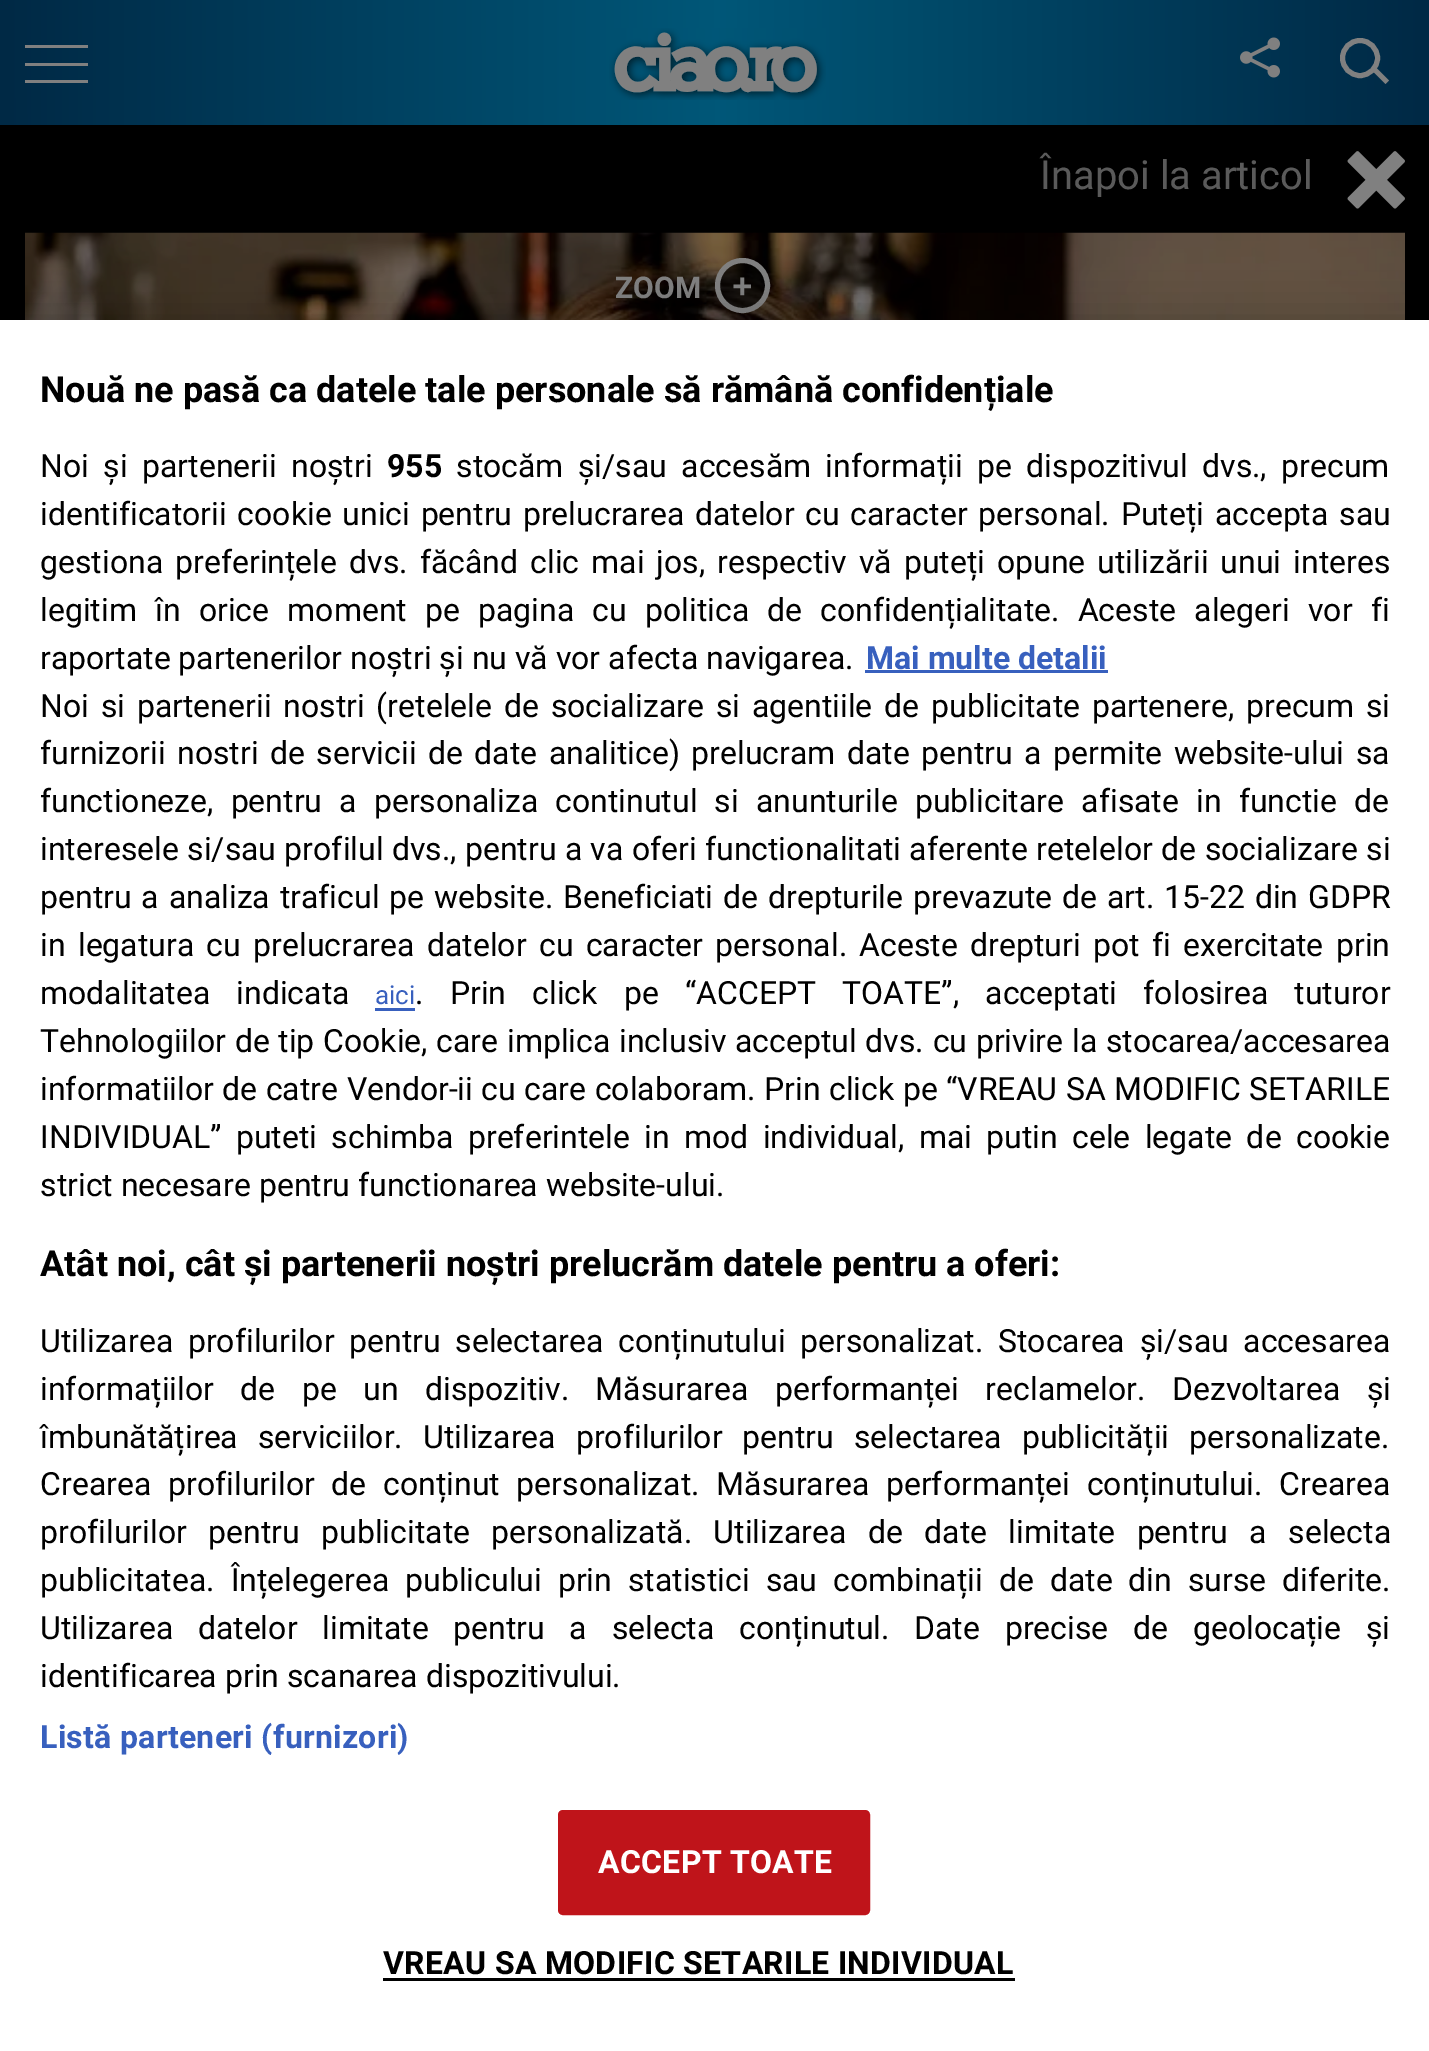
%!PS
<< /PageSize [1429 2051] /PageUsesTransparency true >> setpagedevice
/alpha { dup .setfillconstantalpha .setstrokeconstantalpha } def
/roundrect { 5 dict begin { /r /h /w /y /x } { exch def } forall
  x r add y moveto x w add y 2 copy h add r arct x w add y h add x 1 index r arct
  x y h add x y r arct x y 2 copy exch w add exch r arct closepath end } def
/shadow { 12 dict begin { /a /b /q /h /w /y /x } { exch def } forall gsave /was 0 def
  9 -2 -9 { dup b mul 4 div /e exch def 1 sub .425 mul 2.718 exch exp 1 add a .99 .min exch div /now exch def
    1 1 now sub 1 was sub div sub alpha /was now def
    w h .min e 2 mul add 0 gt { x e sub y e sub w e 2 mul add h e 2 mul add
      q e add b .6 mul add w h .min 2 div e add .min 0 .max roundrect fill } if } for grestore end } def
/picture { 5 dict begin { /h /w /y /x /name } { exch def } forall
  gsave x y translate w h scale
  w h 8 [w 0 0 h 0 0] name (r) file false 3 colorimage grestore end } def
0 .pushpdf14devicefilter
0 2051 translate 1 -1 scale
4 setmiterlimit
1 setgray
0 0 1429 2051 rectfill
gsave newpath 0 0 moveto 1429 0 lineto 1429 125 lineto 0 125 lineto closepath clip newpath
<< /ShadingType 2 /ColorSpace /DeviceRGB /Coords [0 63 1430 62] /Extend [true true] /Function << /FunctionType 3 /Domain [0 1] /Functions [<< /FunctionType 2 /Domain [0 1] /C0 [0 0.161 0.271] /C1 [0 0.341 0.471] /N 1 >> << /FunctionType 2 /Domain [0 1] /C0 [0 0.341 0.471] /C1 [0 0.161 0.271] /N 1 >>] /Bounds [0.5] /Encode [0 1 0 1] >> >> shfill grestore
0.502 setgray
25 63 63 3 rectfill
25 45 63 3 rectfill
25 80 63 3 rectfill
(img1.rgb) 609 28 217 72 picture
(img2.rgb) 1240 37 40 41 picture
5 setlinewidth
newpath 1360 58 17.5 0 360 arc closepath stroke
newpath 1371 69.5 moveto 1374.5 66 lineto 1389 80.5 lineto 1385.5 84 lineto closepath fill
0 setgray
0 125 1429 195 rectfill
/Roboto-Regular [40 0 0 -40 0 0] selectfont
0.353 setgray
1040 189 moveto (Înapoi la articol) show
(img3.rgb) 1347 151 58 58 picture
(img4.rgb) 25 232 1380 88 picture
/Roboto-Bold [30 0 0 -30 0 0] selectfont
0.502 setgray
615 298 moveto (ZOOM) show
0.7 alpha
0 setgray
newpath 742.5 285.5 25 0 360 arc closepath fill
1 alpha
0.502 setgray
newpath 742.5 285.5 25 0 360 arc closepath stroke
/LiberationSans-Bold [35 0 0 -35 0 0] selectfont
732 298 moveto (+) show
0 setgray
0 320 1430 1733 0 22.5 0.2 shadow
1 setgray
0 320 1429 1731 rectfill
/Roboto-Bold [36 0 0 -36 0 0] selectfont
0 setgray
40 402 moveto (Nouă ne pasă ca datele tale personale să rămână confidențiale) show
/Roboto-Regular [32 0 0 -32 0 0] selectfont
40 477 moveto 6.5 0 32 (Noi și partenerii noștri) widthshow
/Roboto-Bold [32 0 0 -32 0 0] selectfont
387 477 moveto (955) show
/Roboto-Regular [32 0 0 -32 0 0] selectfont
456 477 moveto 6.5 0 32 (stocăm și/sau accesăm informații pe dispozitivul dvs., precum) widthshow
40 525 moveto 2.75 0 32 (identificatorii cookie unici pentru prelucrarea datelor cu caracter personal. Puteți accepta sau) widthshow
40 573 moveto 4.1 0 32 (gestiona preferințele dvs. făcând clic mai jos, respectiv vă puteți opune utilizării unui interes) widthshow
40 621 moveto 10.25 0 32 (legitim în orice moment pe pagina cu politica de confidențialitate. Aceste alegeri vor fi) widthshow
40 669 moveto (raportate partenerilor noștri și nu vă vor afecta navigarea.) show
/Roboto-Bold [32 0 0 -32 0 0] selectfont
0.22 0.376 0.745 setrgbcolor
866 669 moveto (Mai multe detalii) show
865 670 243 3 rectfill
/Roboto-Regular [32 0 0 -32 0 0] selectfont
0 setgray
40 717 moveto 3.9 0 32 (Noi si partenerii nostri \(retelele de socializare si agentiile de publicitate partenere, precum si) widthshow
40 764 moveto 3.6 0 32 (furnizorii nostri de servicii de date analitice\) prelucram date pentru a permite website-ului sa) widthshow
40 812 moveto 9.25 0 32 (functioneze, pentru a personaliza continutul si anunturile publicitare afisate in functie de) widthshow
40 860 moveto 0.4 0 32 (interesele si/sau profilul dvs., pentru a va oferi functionalitati aferente retelelor de socializare si) widthshow
40 908 moveto 1.9 0 32 (pentru a analiza traficul pe website. Beneficiati de drepturile prevazute de art. 15-22 din GDPR) widthshow
40 956 moveto 4.4 0 32 (in legatura cu prelucrarea datelor cu caracter personal. Aceste drepturi pot fi exercitate prin) widthshow
40 1004 moveto 18.25 0 32 (modalitatea indicata) widthshow
/Roboto-Regular [26 0 0 -26 0 0] selectfont
0.22 0.376 0.745 setrgbcolor
375 1004 moveto (aici) show
375 1008 40 3 rectfill
/Roboto-Regular [32 0 0 -32 0 0] selectfont
0 setgray
415 1004 moveto 18.25 0 32 (. Prin click pe “ACCEPT TOATE”, acceptati folosirea tuturor) widthshow
40 1052 moveto 0.75 0 32 (Tehnologiilor de tip Cookie, care implica inclusiv acceptul dvs. cu privire la stocarea/accesarea) widthshow
40 1100 moveto 0.5 0 32 (informatiilor de catre Vendor-ii cu care colaboram. Prin click pe “VREAU SA MODIFIC SETARILE) widthshow
40 1148 moveto 6.4 0 32 (INDIVIDUAL” puteti schimba preferintele in mod individual, mai putin cele legate de cookie) widthshow
40 1196 moveto (strict necesare pentru functionarea website-ului.) show
/Roboto-Bold [36 0 0 -36 0 0] selectfont
40 1276 moveto (Atât noi, cât și partenerii noștri prelucrăm datele pentru a oferi:) show
/Roboto-Regular [32 0 0 -32 0 0] selectfont
40 1352 moveto 6.75 0 32 (Utilizarea profilurilor pentru selectarea conținutului personalizat. Stocarea și/sau accesarea) widthshow
40 1400 moveto 18.5 0 32 (informațiilor de pe un dispozitiv. Măsurarea performanței reclamelor. Dezvoltarea și) widthshow
40 1448 moveto 12 0 32 (îmbunătățirea serviciilor. Utilizarea profilurilor pentru selectarea publicității personalizate.) widthshow
40 1495 moveto 8.75 0 32 (Crearea profilurilor de conținut personalizat. Măsurarea performanței conținutului. Crearea) widthshow
40 1543 moveto 13.5 0 32 (profilurilor pentru publicitate personalizată. Utilizarea de date limitate pentru a selecta) widthshow
40 1591 moveto 8 0 32 (publicitatea. Înțelegerea publicului prin statistici sau combinații de date din surse diferite.) widthshow
40 1639 moveto 16.75 0 32 (Utilizarea datelor limitate pentru a selecta conținutul. Date precise de geolocație și) widthshow
40 1687 moveto (identificarea prin scanarea dispozitivului.) show
/Roboto-Bold [32 0 0 -32 0 0] selectfont
0.22 0.376 0.745 setrgbcolor
40 1748 moveto 0.3 0 (Listă parteneri \(furnizori\)) ashow
0.749 0.078 0.102 setrgbcolor
559.5 1811.5 309 102 3.5 roundrect gsave fill grestore
3 setlinewidth
stroke
1 setgray
598 1873 moveto 0.3 0 (ACCEPT TOATE) ashow
0 setgray
383 1974 moveto 0.3 0 (VREAU SA MODIFIC SETARILE INDIVIDUAL) ashow
383 1978 632 3 rectfill
.poppdf14devicefilter showpage
